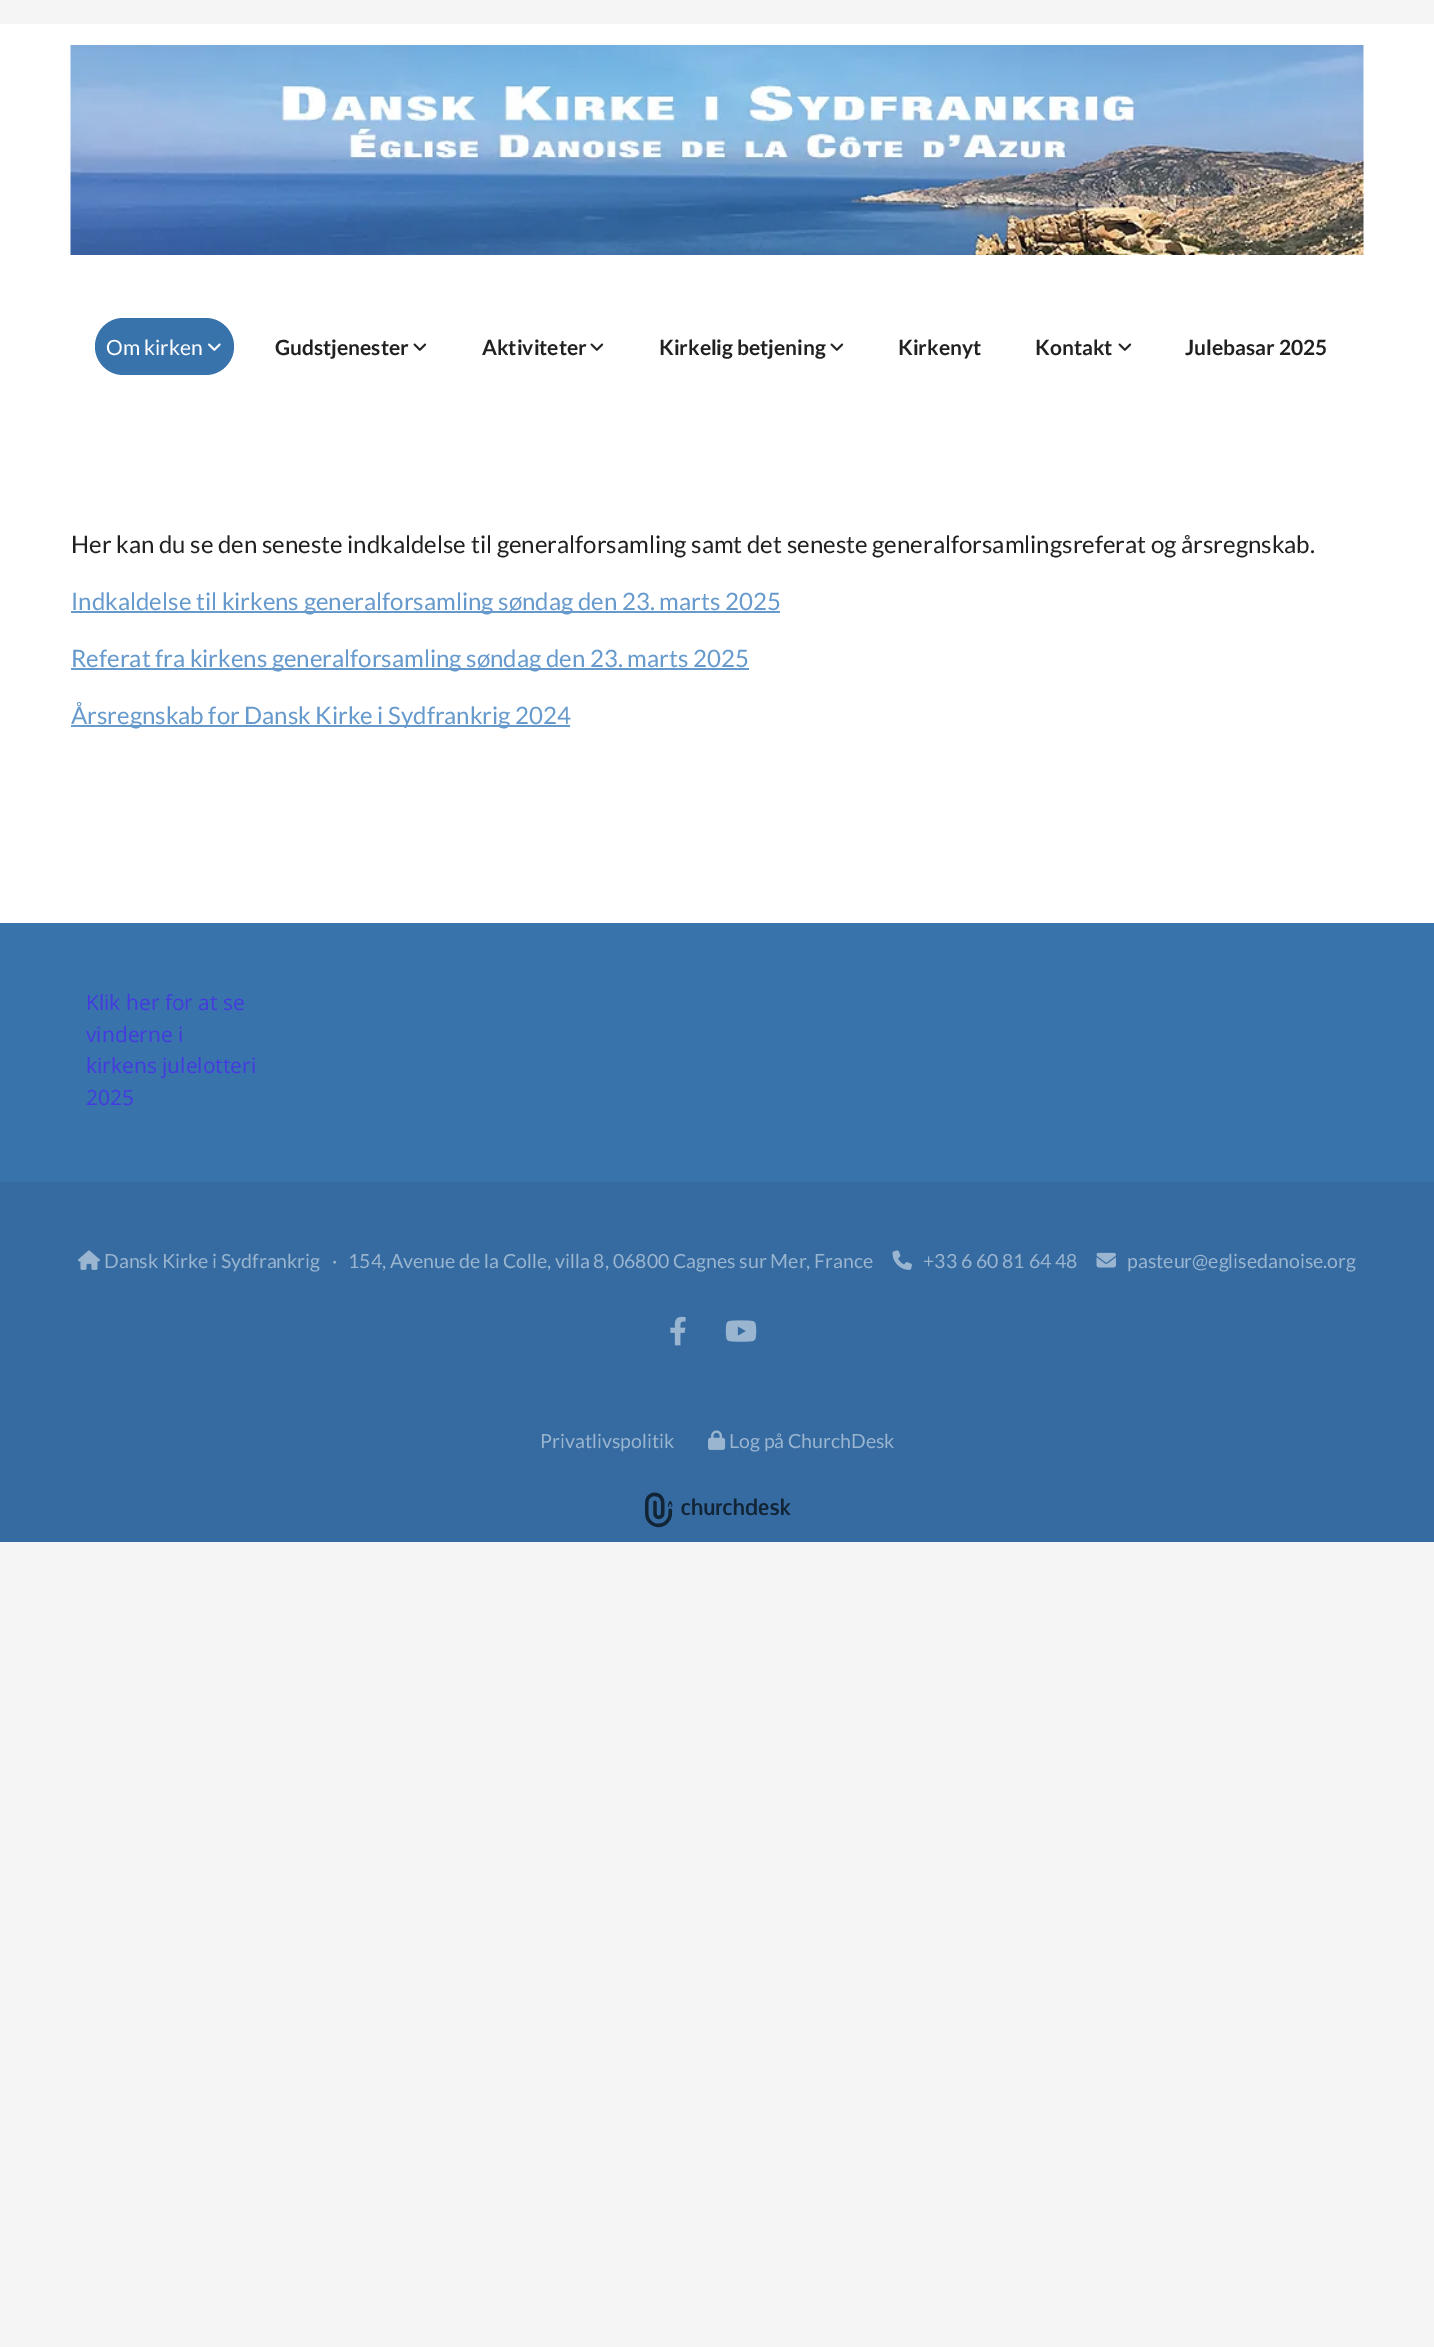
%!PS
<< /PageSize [1434 2347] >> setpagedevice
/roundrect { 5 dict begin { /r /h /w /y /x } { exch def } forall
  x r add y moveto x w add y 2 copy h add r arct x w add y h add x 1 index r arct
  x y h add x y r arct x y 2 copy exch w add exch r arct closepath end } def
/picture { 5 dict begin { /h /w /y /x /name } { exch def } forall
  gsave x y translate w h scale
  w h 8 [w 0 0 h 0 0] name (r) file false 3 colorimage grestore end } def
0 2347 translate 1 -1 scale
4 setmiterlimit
0.961 setgray
0 0 1434 2347 rectfill
1 setgray
0 24 1434 899 rectfill
(img1.rgb) 70 45 1294 210 picture
0.224 0.451 0.675 setrgbcolor
95 318 139 57 28.5 roundrect fill
/Lato-Regular [21 0 0 -21 0 0] selectfont
1 setgray
106 355 moveto (Om kirken) show
(img2.rgb) 208 343 13 8 picture
/Lato-Bold [21 0 0 -21 0 0] selectfont
0.129 setgray
275 355 moveto (Gudstjenester) show
(img3.rgb) 413 343 14 8 picture
482 355 moveto (Aktiviteter) show
(img3.rgb) 590 343 14 8 picture
659 355 moveto (Kirkelig betjening) show
(img3.rgb) 830 343 14 8 picture
898 355 moveto (Kirkenyt) show
1035 355 moveto (Kontakt) show
(img3.rgb) 1118 343 14 8 picture
1185 355 moveto (Julebasar 2025) show
/Lato-Regular [24 0 0 -24 0 0] selectfont
71 553 moveto (Her kan du se den seneste indkaldelse til generalforsamling samt det seneste generalforsamlingsreferat og årsregnskab.) show
0.4 0.6 0.8 setrgbcolor
71 611 709 2 rectfill
71 610 moveto (Indkaldelse til kirkens generalforsamling søndag den 23. marts 2025) show
71 668 678 2 rectfill
71 667 moveto (Referat fra kirkens generalforsamling søndag den 23. marts 2025) show
71 725 499 2 rectfill
71 724 moveto (Årsregnskab for Dansk Kirke i Sydfrankrig 2024) show
0.224 0.451 0.675 setrgbcolor
0 923 1434 259 rectfill
/OpenSans-Regular [21 0 0 -21 0 0] selectfont
0.267 0.227 0.875 setrgbcolor
86 1010 moveto (Klik her for at se) show
86 1042 moveto (vinderne i) show
86 1073 moveto (kirkens julelotteri) show
86 1105 moveto (2025) show
0.208 0.42 0.631 setrgbcolor
0 1182 1434 360 rectfill
(img4.rgb) 78 1250 22 20 picture
/Lato-Regular [19.5 0 0 -19.5 0 0] selectfont
0.604 0.71 0.816 setrgbcolor
104 1268 moveto (Dansk Kirke i Sydfrankrig   ·   154, Avenue de la Colle, villa 8, 06800 Cagnes sur Mer, France) show
(img5.rgb) 892 1250 20 20 picture
923 1268 moveto (+33 6 60 81 64 48) show
(img6.rgb) 1096 1252 20 16 picture
1127 1268 moveto (pasteur@eglisedanoise.org) show
(img7.rgb) 670 1316 16 30 picture
(img8.rgb) 725 1320 32 22 picture
540 1448 moveto (Privatlivspolitik) show
(img9.rgb) 708 1430 18 20 picture
729 1448 moveto (Log på ChurchDesk) show
(img10.rgb) 645 1492 146 36 picture
showpage
